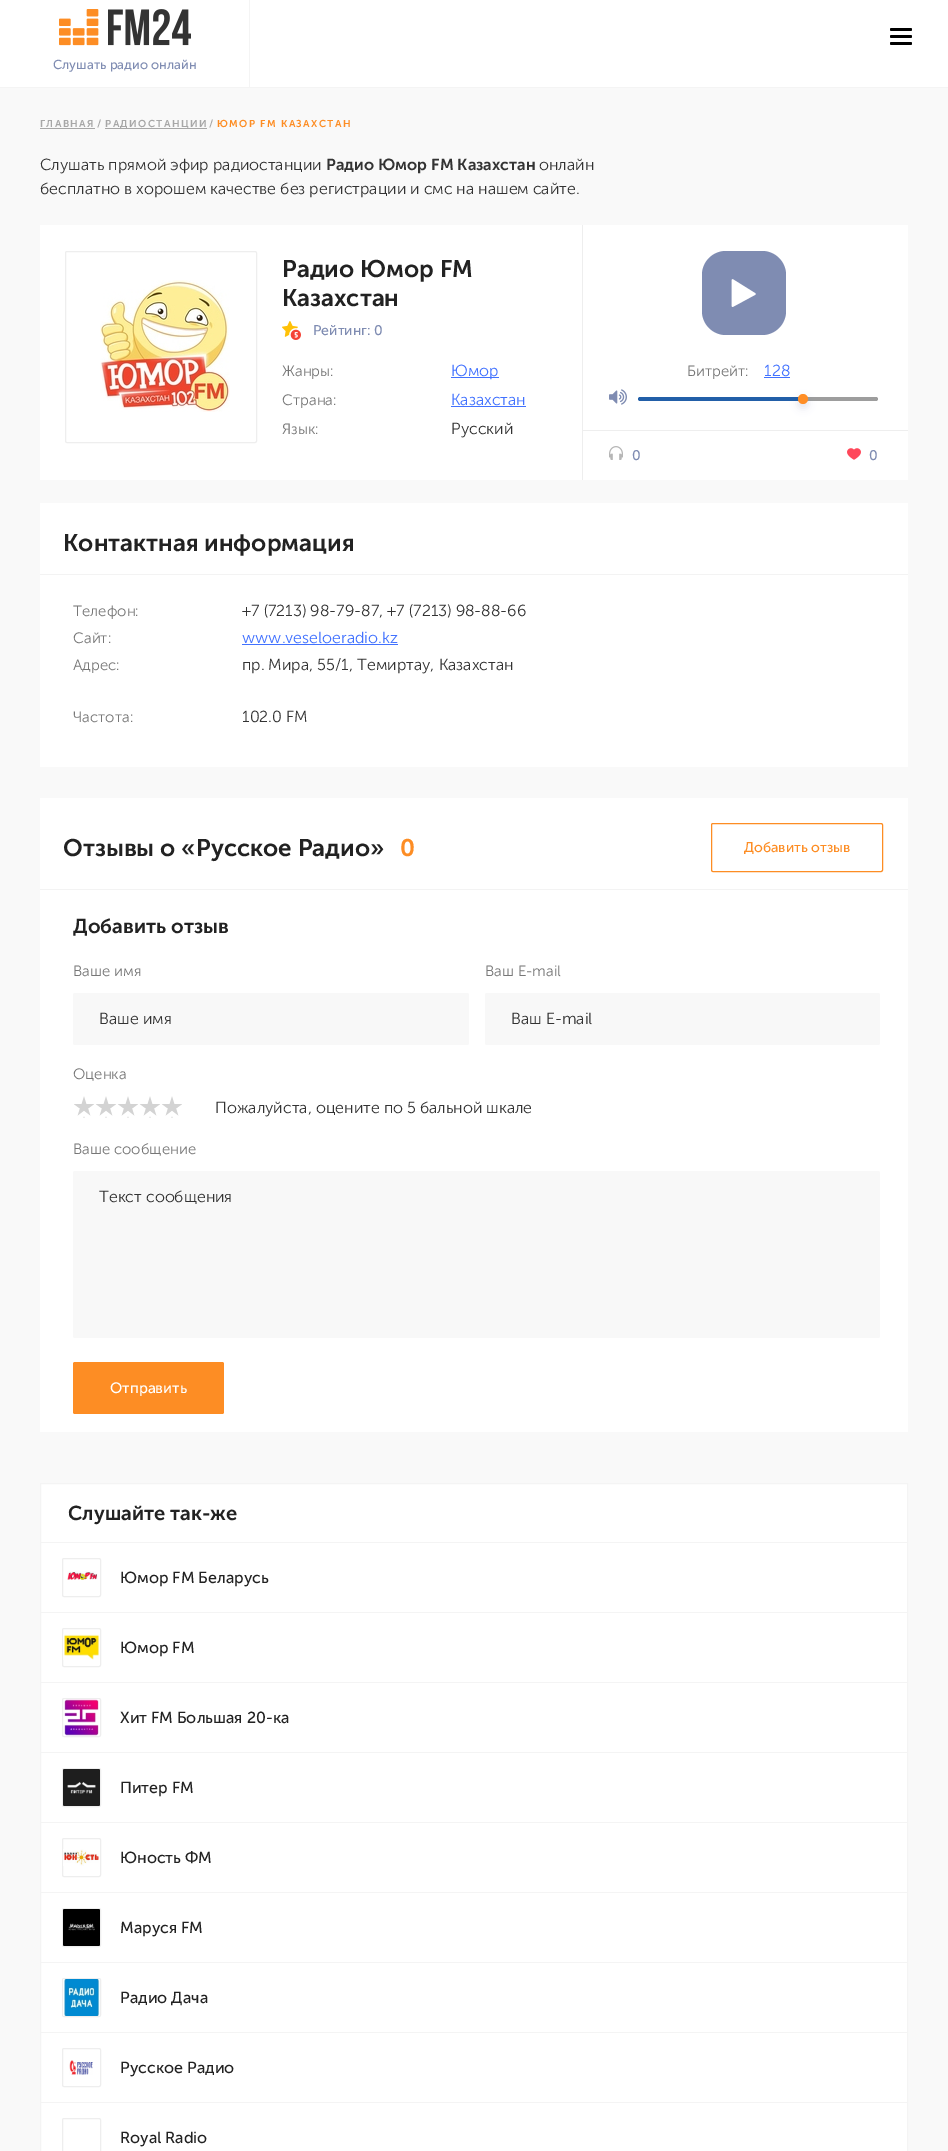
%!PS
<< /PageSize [948 2151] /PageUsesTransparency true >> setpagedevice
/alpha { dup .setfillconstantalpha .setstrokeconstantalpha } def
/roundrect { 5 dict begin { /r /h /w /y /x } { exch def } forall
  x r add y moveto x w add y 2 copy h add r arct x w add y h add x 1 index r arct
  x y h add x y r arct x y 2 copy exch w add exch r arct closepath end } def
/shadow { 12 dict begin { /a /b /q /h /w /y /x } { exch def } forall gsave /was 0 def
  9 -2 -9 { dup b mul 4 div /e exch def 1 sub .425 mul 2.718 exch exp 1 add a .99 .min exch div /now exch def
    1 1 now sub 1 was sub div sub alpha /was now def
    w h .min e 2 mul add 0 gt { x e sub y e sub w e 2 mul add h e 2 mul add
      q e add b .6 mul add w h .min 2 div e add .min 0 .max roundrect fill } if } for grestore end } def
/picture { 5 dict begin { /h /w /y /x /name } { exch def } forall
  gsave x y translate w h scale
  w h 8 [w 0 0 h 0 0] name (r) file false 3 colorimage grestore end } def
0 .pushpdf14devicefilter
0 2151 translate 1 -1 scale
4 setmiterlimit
1 setgray
0 0 948 2151 rectfill
0.957 setgray
0 87 948 1 rectfill
0 setgray
890 28 22 3 1.5 roundrect fill
890 35 22 3 1.5 roundrect fill
890 42 22 3 1.5 roundrect fill
0.957 setgray
249 0 1 87 rectfill
(img1.rgb) 59 9 132 37 picture
/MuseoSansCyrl-Regular [13 0 0 -13 0 0] selectfont
0.498 0.549 0.698 setrgbcolor
53 69 moveto (Слушать радио онлайн) show
0.976 setgray
0 88 948 2063 rectfill
/MuseoSansCyrl-SemiBold [10 0 0 -10 0 0] selectfont
0.655 setgray
40 127 moveto 1.4 0 (ГЛАВНАЯ) ashow
40 128 55 1 rectfill
97 127 moveto 1.4 0 (/) ashow
105 128 102 1 rectfill
105 127 moveto 1.4 0 (РАДИОСТАНЦИИ) ashow
209 127 moveto 1.4 0 (/) ashow
0.992 0.553 0.141 setrgbcolor
217 127 moveto 1.4 0 (ЮМОР FM КАЗАХСТАН) ashow
/MuseoSansCyrl-Light [16 0 0 -16 0 0] selectfont
0.2 setgray
40 170 moveto (Слушать прямой эфир радиостанции) show
/MuseoSansCyrl-SemiBold [16 0 0 -16 0 0] selectfont
326 170 moveto (Радио Юмор FM Казахстан) show
/MuseoSansCyrl-Light [16 0 0 -16 0 0] selectfont
539 170 moveto (онлайн) show
40 194 moveto (бесплатно в хорошем качестве без регистрации и смс на нашем сайте.) show
1 setgray
40 225 868 255 rectfill
0.933 setgray
582 225 1 255 rectfill
65.5 251.5 191 191 1.5 roundrect stroke
(img2.rgb) 100 280 130 132 picture
/MuseoSansCyrl-SemiBold [24 0 0 -24 0 0] selectfont
0.133 setgray
282 277 moveto (Радио Юмор FM) show
282 306 moveto (Казахстан) show
(img3.rgb) 282 321 19 19 picture
/MuseoSansCyrl-Regular [14 0 0 -14 0 0] selectfont
0.498 0.549 0.698 setrgbcolor
313 335 moveto (Рейтинг: 0) show
/MuseoSansCyrl-Light [15 0 0 -15 0 0] selectfont
0.467 setgray
282 376 moveto (Жанры:) show
0.259 0.447 1 setrgbcolor
451 377 48 1 rectfill
/MuseoSansCyrl-Light [16 0 0 -16 0 0] selectfont
451 376 moveto (Юмор) show
/MuseoSansCyrl-Light [15 0 0 -15 0 0] selectfont
0.467 setgray
282 405 moveto (Страна:) show
/MuseoSansCyrl-Light [16 0 0 -16 0 0] selectfont
0.259 0.447 1 setrgbcolor
451 405 moveto (Казахстан) show
451 406 75 1 rectfill
/MuseoSansCyrl-Light [15 0 0 -15 0 0] selectfont
0.467 setgray
282 434 moveto (Язык:) show
/MuseoSansCyrl-Light [16 0 0 -16 0 0] selectfont
0.2 setgray
451 434 moveto (Русский) show
0.498 0.549 0.698 setrgbcolor
702 251 84 84 24 roundrect fill
(img4.rgb) 731 279 25 28 picture
/MuseoSansCyrl-Light [15 0 0 -15 0 0] selectfont
0.467 setgray
687 376 moveto (Битрейт:) show
/MuseoSansCyrl-Light [16 0 0 -16 0 0] selectfont
0.259 0.447 1 setrgbcolor
764 376 moveto (128) show
764 377 26 1 rectfill
(img5.rgb) 609 389 18 16 picture
0.133 0.373 0.659 setrgbcolor
newpath 640 397 moveto 805 397 lineto 805 401 lineto 640 401 lineto 639 401 638 400 638 399 curveto 638 398 639 397 640 397 curveto closepath fill
0.616 setgray
newpath 805 397 moveto 876 397 lineto 877 397 878 398 878 399 curveto 878 400 877 401 876 401 curveto 805 401 lineto closepath fill
0.286 0.384 0.533 setrgbcolor
798 398 10 10 5 4 0.15 shadow
1 0.557 0.149 setrgbcolor
newpath 803 399 5 0 360 arc closepath fill
0.933 setgray
583 430 325 1 rectfill
(img6.rgb) 609 446 14 14 picture
/MuseoSansCyrl-Regular [14 0 0 -14 0 0] selectfont
0.498 0.549 0.698 setrgbcolor
632 460 moveto (0) show
(img7.rgb) 847 448 14 12 picture
869 460 moveto (0) show
1 setgray
40 503 868 264 rectfill
0.953 setgray
40 574 868 1 rectfill
/MuseoSansCyrl-SemiBold [24 0 0 -24 0 0] selectfont
0.133 setgray
63 551 moveto (Контактная информация) show
/MuseoSansCyrl-Light [15 0 0 -15 0 0] selectfont
0.467 setgray
73 616 moveto (Телефон:) show
/MuseoSansCyrl-Light [16 0 0 -16 0 0] selectfont
0.2 setgray
242 616 moveto (+7 \(7213\) 98-79-87, +7 \(7213\) 98-88-66) show
/MuseoSansCyrl-Light [15 0 0 -15 0 0] selectfont
0.467 setgray
73 643 moveto (Сайт:) show
/MuseoSansCyrl-Light [16 0 0 -16 0 0] selectfont
0.259 0.447 1 setrgbcolor
242 643 moveto (www.veseloeradio.kz) show
242 644 156 1 rectfill
/MuseoSansCyrl-Light [15 0 0 -15 0 0] selectfont
0.467 setgray
73 670 moveto (Адрес:) show
/MuseoSansCyrl-Light [16 0 0 -16 0 0] selectfont
0.2 setgray
242 670 moveto (пр. Мира, 55/1, Темиртау, Казахстан) show
/MuseoSansCyrl-Light [15 0 0 -15 0 0] selectfont
0.467 setgray
73 722 moveto (Частота:) show
/MuseoSansCyrl-Light [16 0 0 -16 0 0] selectfont
0.2 setgray
242 722 moveto (102.0 FM) show
1 setgray
40 798 868 634 rectfill
0.953 setgray
40 889 868 1 rectfill
/MuseoSansCyrl-SemiBold [24 0 0 -24 0 0] selectfont
0.133 setgray
63 856 moveto (Отзывы о «Русское Радио») show
0.992 0.553 0.141 setrgbcolor
400 856 moveto (0) show
711.5 823.5 171 48 1.5 roundrect stroke
/MuseoSansCyrl-Regular [14 0 0 -14 0 0] selectfont
744 852 moveto (Добавить отзыв) show
/MuseoSansCyrl-SemiBold [20 0 0 -20 0 0] selectfont
0.133 setgray
73 933 moveto (Добавить отзыв) show
/MuseoSansCyrl-Light [15 0 0 -15 0 0] selectfont
0.467 setgray
73 976 moveto (Ваше имя) show
0.973 setgray
73 993 396 52 2 roundrect fill
/MuseoSansCyrl-Light [16 0 0 -16 0 0] selectfont
0.2 setgray
99 1024 moveto (Ваше имя) show
/MuseoSansCyrl-Light [15 0 0 -15 0 0] selectfont
0.467 setgray
485 976 moveto (Ваш E-mail) show
0.973 setgray
485 993 395 52 2 roundrect fill
/MuseoSansCyrl-Light [16 0 0 -16 0 0] selectfont
0.2 setgray
511 1024 moveto (Ваш E-mail) show
/MuseoSansCyrl-Light [15 0 0 -15 0 0] selectfont
0.467 setgray
73 1079 moveto (Оценка) show
(img8.rgb) 74 1096 20 22 picture
(img8.rgb) 96 1096 20 22 picture
(img8.rgb) 118 1096 20 22 picture
(img8.rgb) 140 1096 20 22 picture
(img8.rgb) 162 1096 20 22 picture
/MuseoSansCyrl-Light [16 0 0 -16 0 0] selectfont
0.2 setgray
215 1113 moveto (Пожалуйста, оцените по 5 бальной шкале) show
/MuseoSansCyrl-Light [15 0 0 -15 0 0] selectfont
0.467 setgray
73 1154 moveto (Ваше сообщение) show
0.973 setgray
73 1171 807 167 2 roundrect fill
/MuseoSansCyrl-Light [16 0 0 -16 0 0] selectfont
0.2 setgray
99 1202 moveto (Текст сообщения) show
0.992 0.553 0.141 setrgbcolor
73 1362 151 52 2 roundrect fill
/MuseoSansCyrl-Regular [15 0 0 -15 0 0] selectfont
1 setgray
110 1393 moveto (Отправить) show
newpath 40.5 1483.5 moveto 907.5 1483.5 lineto 907.5 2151.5 lineto 40.5 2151.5 lineto closepath gsave fill grestore
0.957 setgray
stroke
41 1542 866 1 rectfill
/MuseoSansCyrl-SemiBold [20 0 0 -20 0 0] selectfont
0.133 setgray
68 1520 moveto (Слушайте так-же) show
0.957 setgray
41 1612 866 1 rectfill
0.933 setgray
62.5 1558.5 38 38 1.5 roundrect stroke
(img9.rgb) 67 1571 31 9 picture
/MuseoSansCyrl-Regular [16 0 0 -16 0 0] selectfont
0.133 setgray
120 1583 moveto (Юмор FM Беларусь) show
0.957 setgray
41 1682 866 1 rectfill
0.933 setgray
62.5 1628.5 38 38 1.5 roundrect stroke
(img10.rgb) 63 1634 37 26 picture
0.133 setgray
120 1653 moveto (Юмор FM) show
0.957 setgray
41 1752 866 1 rectfill
0.933 setgray
62.5 1698.5 38 38 1.5 roundrect stroke
(img11.rgb) 64 1699 35 37 picture
0.133 setgray
120 1723 moveto (Хит FM Большая 20-ка) show
0.957 setgray
41 1822 866 1 rectfill
0.933 setgray
62.5 1768.5 38 38 1.5 roundrect stroke
(img12.rgb) 63 1769 37 37 picture
0.133 setgray
120 1793 moveto (Питер FM) show
0.957 setgray
41 1892 866 1 rectfill
0.933 setgray
62.5 1838.5 38 38 1.5 roundrect stroke
(img13.rgb) 63 1849 36 17 picture
0.133 setgray
120 1863 moveto (Юность ФМ) show
0.957 setgray
41 1962 866 1 rectfill
0.933 setgray
62.5 1908.5 38 38 1.5 roundrect stroke
(img14.rgb) 63 1909 37 37 picture
0.133 setgray
120 1933 moveto (Маруся FM) show
0.957 setgray
41 2032 866 1 rectfill
0.933 setgray
62.5 1978.5 38 38 1.5 roundrect stroke
(img15.rgb) 63 1979 37 37 picture
0.133 setgray
120 2003 moveto (Радио Дача) show
0.957 setgray
41 2102 866 1 rectfill
0.933 setgray
62.5 2048.5 38 38 1.5 roundrect stroke
(img16.rgb) 69 2060 24 15 picture
0.133 setgray
120 2073 moveto (Русское Радио) show
0.933 setgray
62.5 2118.5 38 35 1.5 roundrect stroke
0.133 setgray
120 2143 moveto (Royal Radio) show
.poppdf14devicefilter showpage
